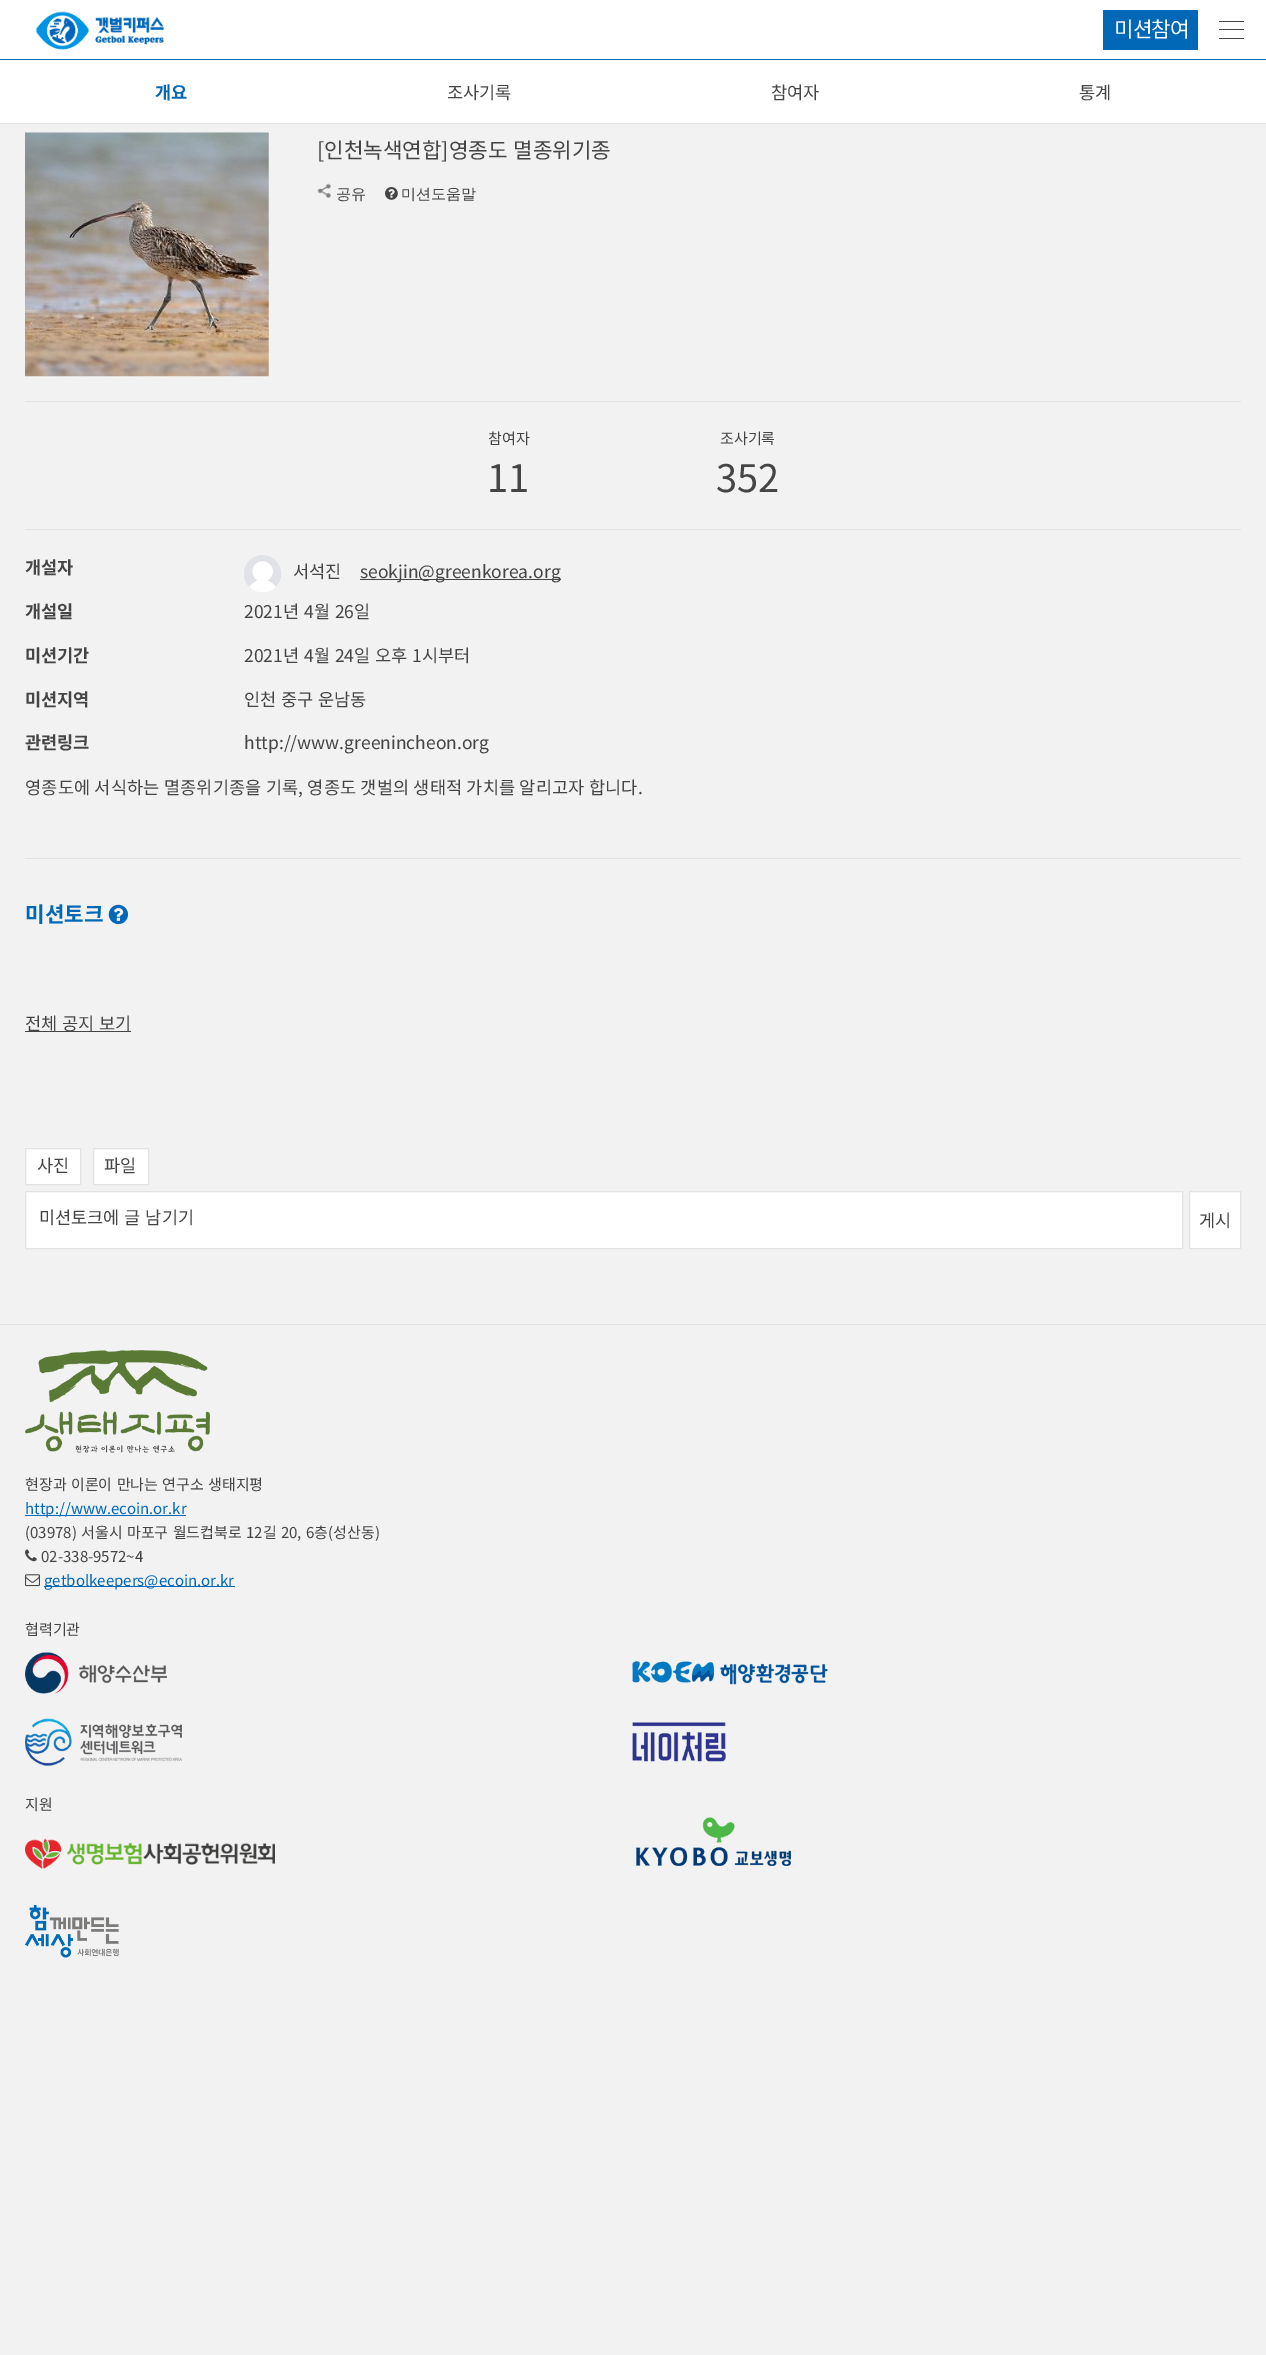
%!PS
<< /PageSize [1266 2355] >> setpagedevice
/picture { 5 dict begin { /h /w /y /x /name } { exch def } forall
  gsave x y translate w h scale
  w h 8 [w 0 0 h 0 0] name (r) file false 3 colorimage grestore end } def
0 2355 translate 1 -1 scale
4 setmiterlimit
0.949 setgray
0 0 1266 2355 rectfill
1 setgray
0 0 1266 59 rectfill
0 0.408 0.718 setrgbcolor
0 59 1266 1 rectfill
(img1.rgb) 35 11 129 39 picture
1103 10 95 40 rectfill
/NotoSansKR-Regular [21.25 0 0 -21.25 0 0] selectfont
1 setgray
1114 37 moveto -1 0 (미션참여) ashow
0.271 setgray
1219 21 25 1 rectfill
1219 29 25 1 rectfill
1219 38 25 1 rectfill
1 setgray
0 60 1266 63 rectfill
0.886 setgray
0 123 1266 1 rectfill
/NotoSansKR-Bold [17.5 0 0 -17.5 0 0] selectfont
0 0.408 0.718 setrgbcolor
155 99 moveto (개요) show
/NotoSansKR-Regular [17.5 0 0 -17.5 0 0] selectfont
0.271 setgray
447 99 moveto (조사기록) show
771 99 moveto (참여자) show
1079 99 moveto (통계) show
(img2.rgb) 25 132 244 245 picture
/NotoSansKR-Regular [21.25 0 0 -21.25 0 0] selectfont
317 158 moveto 1 0 32 ([인천녹색연합]영종도 멸종위기종) widthshow
(img3.rgb) 317 183 14 15 picture
/WenQuanYiZenHei-Medium [15 0 0 -15 0 0] selectfont
336 199 moveto (공유) show
(img4.rgb) 385 187 13 13 picture
401 199 moveto (미션도움말) show
0.886 setgray
25 401 1216 1 rectfill
25 529 1216 1 rectfill
/NotoSansKR-Regular [15 0 0 -15 0 0] selectfont
0.271 setgray
488 444 moveto (참여자) show
/NotoSansKR-Regular [38 0 0 -38 0 0] selectfont
487 492 moveto (11) show
/NotoSansKR-Regular [15 0 0 -15 0 0] selectfont
720 444 moveto (조사기록) show
/NotoSansKR-Regular [38 0 0 -38 0 0] selectfont
716 492 moveto (352) show
/NotoSansKR-Bold [17.5 0 0 -17.5 0 0] selectfont
25 574 moveto (개설자) show
(img5.rgb) 244 555 38 37 picture
/NotoSansKR-Regular [17.5 0 0 -17.5 0 0] selectfont
293 578 moveto (서석진) show
360 579 201 1 rectfill
360 578 moveto (seokjin@greenkorea.org) show
/NotoSansKR-Bold [17.5 0 0 -17.5 0 0] selectfont
25 618 moveto (개설일) show
/NotoSansKR-Regular [17.5 0 0 -17.5 0 0] selectfont
244 618 moveto 1 0 32 (2021년 4월 26일) widthshow
/NotoSansKR-Bold [17.5 0 0 -17.5 0 0] selectfont
25 662 moveto (미션기간) show
/NotoSansKR-Regular [17.5 0 0 -17.5 0 0] selectfont
244 662 moveto 1 0 32 (2021년 4월 24일 오후 1시부터) widthshow
/NotoSansKR-Bold [17.5 0 0 -17.5 0 0] selectfont
25 706 moveto (미션지역) show
/NotoSansKR-Regular [17.5 0 0 -17.5 0 0] selectfont
244 706 moveto 1 0 32 (인천 중구 운남동) widthshow
/NotoSansKR-Bold [17.5 0 0 -17.5 0 0] selectfont
25 749 moveto (관련링크) show
/NotoSansKR-Regular [17.5 0 0 -17.5 0 0] selectfont
244 749 moveto (http://www.greenincheon.org) show
25 794 moveto 0.2 0 (영종도에 서식하는 멸종위기종을 기록, 영종도 갯벌의 생태적 가치를 알리고자 합니다.) ashow
0.886 setgray
25 858 1216 1 rectfill
/NotoSansKR-Bold [21.25 0 0 -21.25 0 0] selectfont
0 0.408 0.718 setrgbcolor
25 922 moveto (미션토크) show
(img6.rgb) 108 904 20 21 picture
0.271 setgray
25 1031 106 1 rectfill
/NotoSansKR-Regular [17.5 0 0 -17.5 0 0] selectfont
25 1030 moveto 1 0 32 (전체 공지 보기) widthshow
1 setgray
newpath 25.5 1148.5 moveto 80.5 1148.5 lineto 80.5 1184.5 lineto 25.5 1184.5 lineto closepath gsave fill grestore
0.886 setgray
stroke
0.271 setgray
37 1172 moveto (사진) show
1 setgray
newpath 93.5 1148.5 moveto 148.5 1148.5 lineto 148.5 1184.5 lineto 93.5 1184.5 lineto closepath gsave fill grestore
0.886 setgray
stroke
0.271 setgray
104 1172 moveto (파일) show
1 setgray
newpath 25.5 1191.5 moveto 1182.5 1191.5 lineto 1182.5 1248.5 lineto 25.5 1248.5 lineto closepath gsave fill grestore
0.886 setgray
stroke
0.271 setgray
39 1224 moveto 1 0 32 (미션토크에 글 남기기) widthshow
1 setgray
newpath 1189.5 1191.5 moveto 1240.5 1191.5 lineto 1240.5 1248.5 lineto 1189.5 1248.5 lineto closepath gsave fill grestore
0.886 setgray
stroke
0.271 setgray
1199 1227 moveto (게시) show
0.886 setgray
0 1324 1266 1 rectfill
(img7.rgb) 25 1350 185 103 picture
/NotoSansKR-Regular [15 0 0 -15 0 0] selectfont
0.271 setgray
25 1490 moveto 1 0 32 (현장과 이론이 만나는 연구소 생태지평) widthshow
0 0.408 0.718 setrgbcolor
25 1515 161 1 rectfill
25 1514 moveto (http://www.ecoin.or.kr) show
0.271 setgray
25 1538 moveto 1 0 32 (\(03978\) 서울시 마포구 월드컵북로 12길 20, 6층\(성산동\)) widthshow
(img8.rgb) 25 1549 12 13 picture
41 1562 moveto (02-338-9572~4) show
(img9.rgb) 25 1574 15 13 picture
0 0.408 0.718 setrgbcolor
44 1586 191 1 rectfill
44 1586 moveto (getbolkeepers@ecoin.or.kr) show
0.271 setgray
25 1635 moveto (협력기관) show
(img10.rgb) 25 1652 142 42 picture
(img11.rgb) 632 1661 196 24 picture
(img12.rgb) 25 1718 157 48 picture
(img13.rgb) 632 1722 94 40 picture
25 1810 moveto (지원) show
(img14.rgb) 25 1838 250 31 picture
(img15.rgb) 632 1817 163 53 picture
(img16.rgb) 25 1905 94 53 picture
showpage
